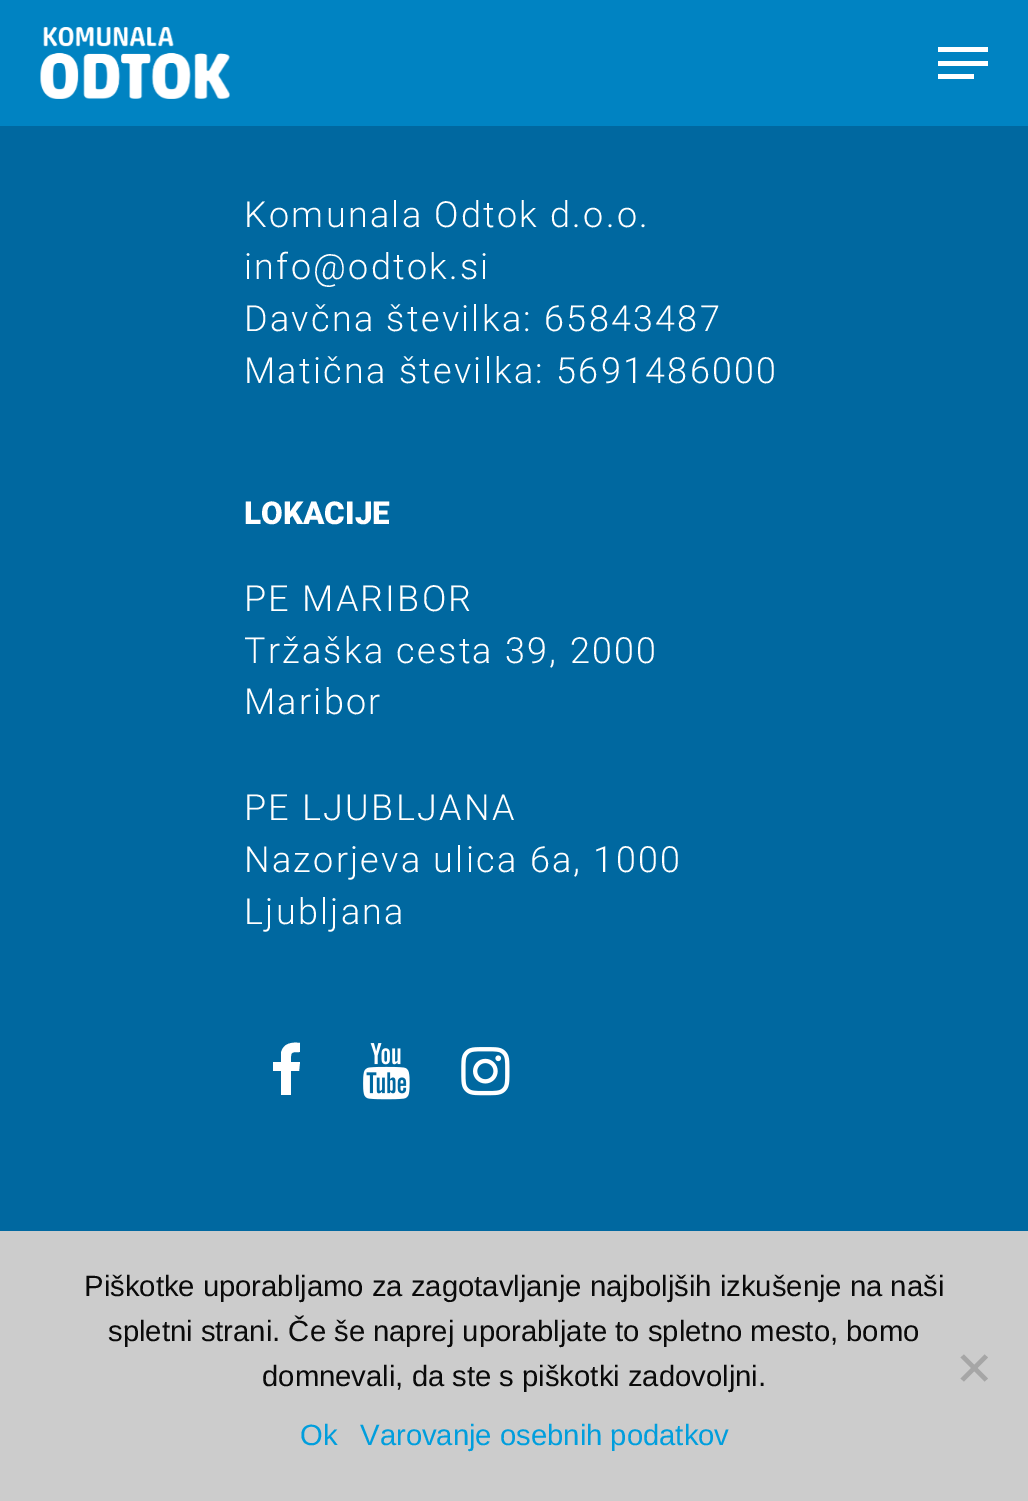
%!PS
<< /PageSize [1028 1501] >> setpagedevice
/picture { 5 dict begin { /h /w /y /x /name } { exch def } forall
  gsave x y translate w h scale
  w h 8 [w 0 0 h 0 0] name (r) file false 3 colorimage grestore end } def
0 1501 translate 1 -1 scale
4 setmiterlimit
0 0.408 0.627 setrgbcolor
0 0 1028 1501 rectfill
0 0.514 0.761 setrgbcolor
0 0 1028 126 rectfill
(img1.rgb) 40 27 190 72 picture
1 setgray
938 47 50 5 rectfill
938 74 36 5 rectfill
938 61 50 5 rectfill
/Roboto-Light [36 0 0 -36 0 0] selectfont
244 227 moveto 2.25 0 (Komunala Odtok d.o.o.) ashow
244 279 moveto 2.25 0 (info@odtok.si) ashow
244 331 moveto 2.25 0 (Davčna številka: 65843487) ashow
244 383 moveto 2.25 0 (Matična številka: 5691486000) ashow
/Roboto-Black [31.5 0 0 -31.5 0 0] selectfont
244 524 moveto (LOKACIJE) show
/Roboto-Light [36 0 0 -36 0 0] selectfont
244 611 moveto 2.25 0 (PE MARIBOR) ashow
244 663 moveto 2.25 0 (Tržaška cesta 39, 2000) ashow
244 714 moveto 2.25 0 (Maribor) ashow
244 820 moveto 2.25 0 (PE LJUBLJANA) ashow
244 872 moveto 2.25 0 (Nazorjeva ulica 6a, 1000) ashow
244 924 moveto 2.25 0 (Ljubljana) ashow
newpath 300 1043 moveto 292 1042 283 1043 281 1053 curveto 281 1062 lineto 273 1062 lineto 273 1071 lineto 281 1071 lineto 281 1095 lineto 291 1095 lineto 291 1071 lineto 299 1071 lineto 300 1062 lineto 291 1062 lineto 291 1052 290 1052 300 1052 curveto closepath fill
(img2.rgb) 363 1043 47 57 picture
(img3.rgb) 461 1047 49 49 picture
0.8 setgray
0 1231 1028 270 rectfill
/LiberationSans-Regular [29.25 0 0 -29.25 0 0] selectfont
0.039 setgray
84 1296 moveto (Piškotke uporabljamo za zagotavljanje najboljših izkušenje na naši) show
108 1341 moveto (spletni strani. Če še naprej uporabljate to spletno mesto, bomo) show
262 1386 moveto (domnevali, da ste s piškotki zadovoljni.) show
0.651 setgray
newpath 984.5 1354.5 moveto 988 1357.5 lineto 964 1381.5 lineto 960.5 1378.5 lineto closepath fill
newpath 960.5 1357.5 moveto 964 1354.5 lineto 988 1378.5 lineto 984.5 1381.5 lineto closepath fill
0 0.62 0.867 setrgbcolor
300 1445 moveto (Ok) show
360 1445 moveto (Varovanje osebnih podatkov) show
showpage
